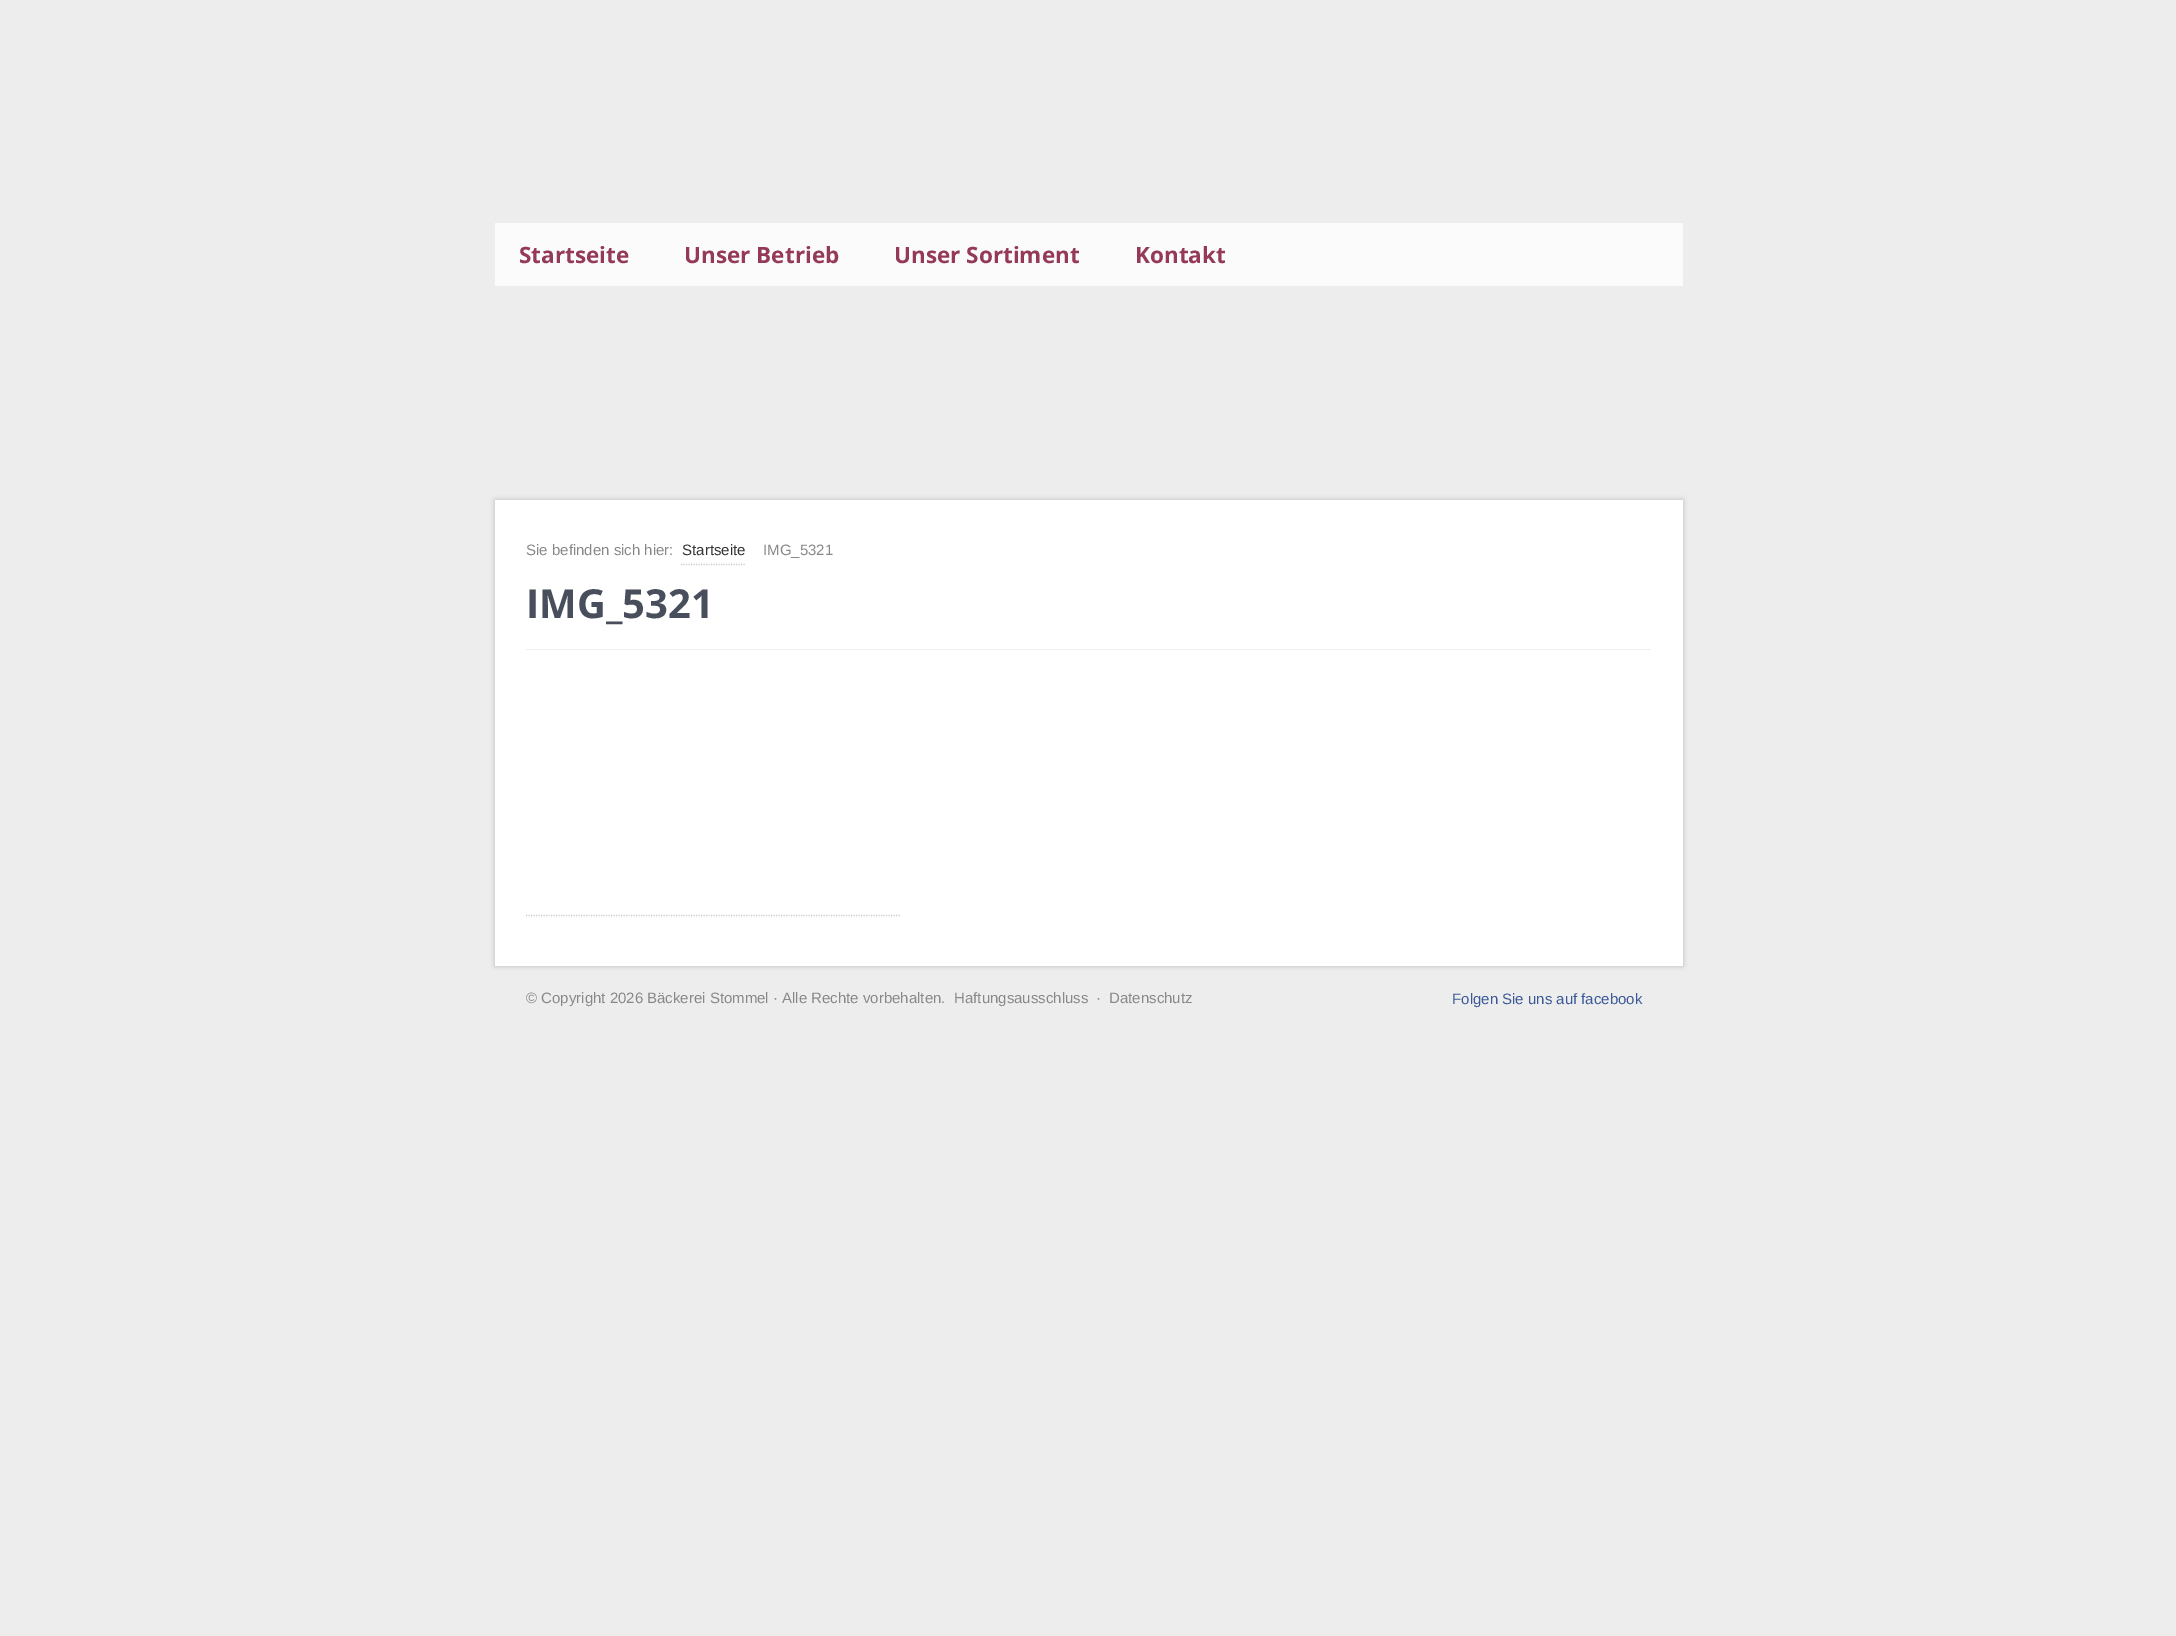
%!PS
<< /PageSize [2176 1636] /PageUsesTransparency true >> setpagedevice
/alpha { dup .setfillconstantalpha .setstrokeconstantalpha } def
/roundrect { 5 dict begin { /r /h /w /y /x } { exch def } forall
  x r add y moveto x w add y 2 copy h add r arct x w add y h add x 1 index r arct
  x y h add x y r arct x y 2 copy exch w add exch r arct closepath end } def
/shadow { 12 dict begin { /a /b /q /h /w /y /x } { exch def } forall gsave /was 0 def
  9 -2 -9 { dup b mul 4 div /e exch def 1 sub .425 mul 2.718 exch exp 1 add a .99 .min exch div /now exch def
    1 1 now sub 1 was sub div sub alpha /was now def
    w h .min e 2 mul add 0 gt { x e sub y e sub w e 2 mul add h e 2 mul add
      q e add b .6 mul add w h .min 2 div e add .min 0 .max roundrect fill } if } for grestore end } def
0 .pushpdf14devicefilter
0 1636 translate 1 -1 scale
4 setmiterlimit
0.929 setgray
0 0 2176 1636 rectfill
0.984 setgray
495 223 1188 63 rectfill
/OpenSans-Bold [22.5 0 0 -22.5 0 0] selectfont
0.58 0.224 0.345 setrgbcolor
519 263 moveto (Startseite) show
684 263 moveto (Unser Betrieb) show
894 263 moveto (Unser Sortiment) show
1135 263 moveto (Kontakt) show
0 setgray
495 500 1188 466 0 2.5 0.2 shadow
1 setgray
495 500 1188 466 rectfill
/LiberationSans-Regular [15 0 0 -15 0 0] selectfont
0.533 setgray
526 555 moveto (Sie befinden sich hier:) show
0.8 setgray
1.2 setlinewidth
[1.25 1.25] 0 setdash
newpath 681 564.5 moveto 745 564.5 lineto stroke
0.2 setgray
682 555 moveto (Startseite) show
0.533 setgray
763 555 moveto (IMG_5321) show
/OpenSans-Bold [40 0 0 -40 0 0] selectfont
0.282 0.306 0.361 setrgbcolor
526 618 moveto (IMG_5321) show
0.933 setgray
526 649 1125 1 rectfill
0.8 setgray
newpath 526 915.5 moveto 901 915.5 lineto stroke
/LiberationSans-Regular [15 0 0 -15 0 0] selectfont
0.533 setgray
526 1003 moveto (© Copyright 2026 Bäckerei Stommel · Alle Rechte vorbehalten.) show
954 1003 moveto (Haftungsausschluss) show
1096 1003 moveto (·) show
1109 1003 moveto (Datenschutz) show
0.231 0.349 0.596 setrgbcolor
1452 1004 moveto (Folgen Sie uns auf facebook) show
.poppdf14devicefilter showpage
